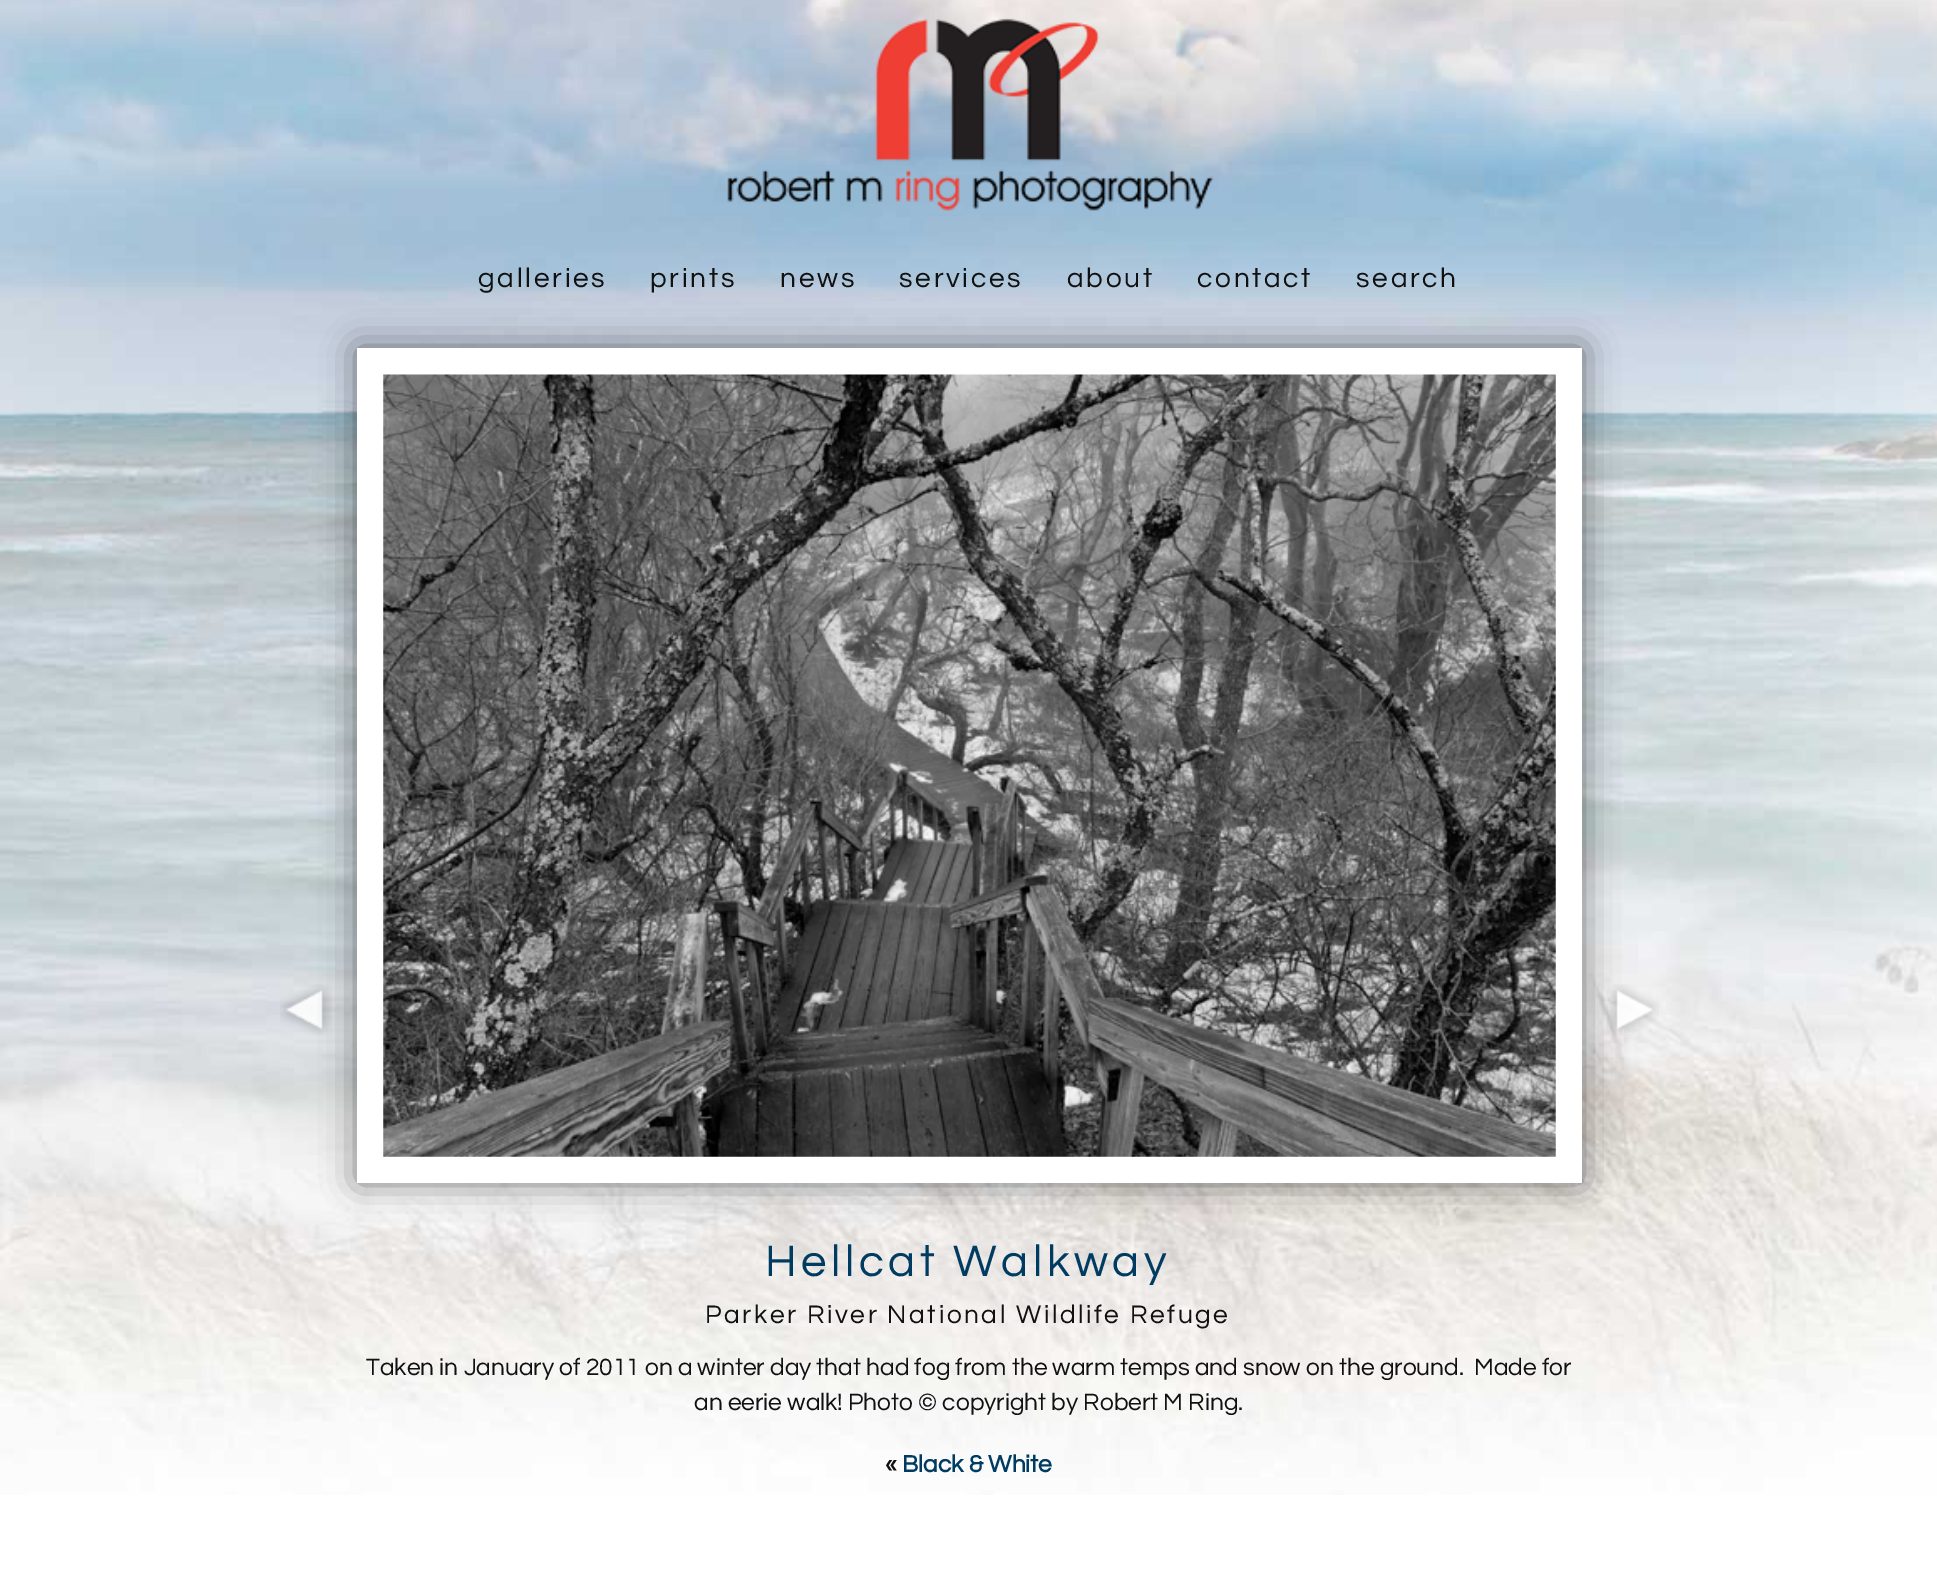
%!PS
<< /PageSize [1937 1580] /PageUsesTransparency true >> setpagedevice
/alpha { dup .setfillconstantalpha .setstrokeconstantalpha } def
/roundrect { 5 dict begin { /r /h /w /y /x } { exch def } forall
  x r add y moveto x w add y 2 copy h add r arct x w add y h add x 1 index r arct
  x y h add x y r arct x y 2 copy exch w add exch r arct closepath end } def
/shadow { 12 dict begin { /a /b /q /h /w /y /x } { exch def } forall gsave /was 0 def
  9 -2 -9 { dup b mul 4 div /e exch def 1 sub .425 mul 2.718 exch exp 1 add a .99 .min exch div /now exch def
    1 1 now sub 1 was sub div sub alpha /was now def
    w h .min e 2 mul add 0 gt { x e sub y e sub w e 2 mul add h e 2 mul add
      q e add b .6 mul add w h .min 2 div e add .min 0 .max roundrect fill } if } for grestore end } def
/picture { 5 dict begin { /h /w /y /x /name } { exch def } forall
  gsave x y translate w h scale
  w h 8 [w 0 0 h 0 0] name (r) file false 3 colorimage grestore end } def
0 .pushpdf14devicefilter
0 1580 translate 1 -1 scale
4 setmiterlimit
1 setgray
0 0 1937 1580 rectfill
(img1.rgb) 0 0 1937 1495 picture
(img2.rgb) 727 18 487 193 picture
/Questrial-Regular [28 0 0 -28 0 0] selectfont
0.067 setgray
478 287 moveto 2.75 0 (galleries) ashow
650 287 moveto 2.75 0 (prints) ashow
780 287 moveto 2.75 0 (news) ashow
899 287 moveto 2.75 0 (services) ashow
1067 287 moveto 2.75 0 (about) ashow
1197 287 moveto 2.75 0 (contact) ashow
1356 287 moveto 2.75 0 (search) ashow
(img4.rgb) 280 984 52 52 picture
0 setgray
357 348 1225 835 0 17.5 0.5 shadow
1 setgray
357 348 1225 835 rectfill
(img3.rgb) 383 374 1173 783 picture
(img5.rgb) 1607 984 52 52 picture
/Questrial-Regular [45.5 0 0 -45.5 0 0] selectfont
0 0.235 0.384 setrgbcolor
765 1276 moveto 4.5 0 (Hellcat Walkway) ashow
/Questrial-Regular [26.25 0 0 -26.25 0 0] selectfont
0.067 setgray
705 1323 moveto 2.6 0 (Parker River National Wildlife Refuge) ashow
/Questrial-Regular [24.5 0 0 -24.5 0 0] selectfont
366 1375 moveto (Taken in January of 2011 on a winter day that had fog from the warm temps and snow on the ground.  Made for) show
694 1410 moveto (an eerie walk! Photo © copyright by Robert M Ring.) show
/Questrial-Bold [24.5 0 0 -24.5 0 0] selectfont
885 1472 moveto («) show
0 0.235 0.384 setrgbcolor
902 1472 moveto (Black & White) show
.poppdf14devicefilter showpage
